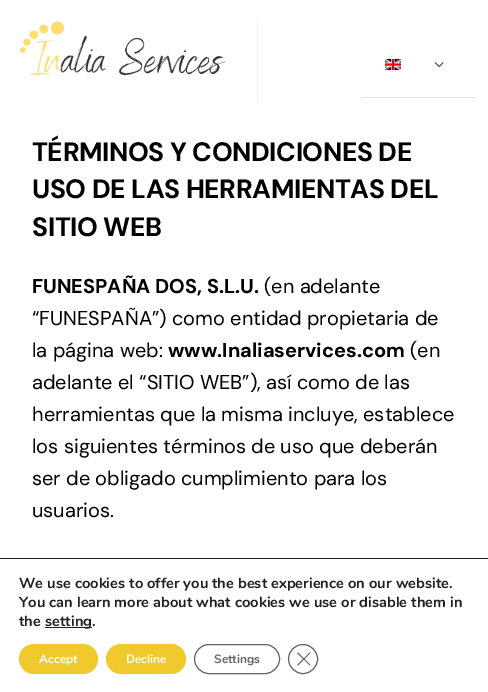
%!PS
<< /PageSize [488 692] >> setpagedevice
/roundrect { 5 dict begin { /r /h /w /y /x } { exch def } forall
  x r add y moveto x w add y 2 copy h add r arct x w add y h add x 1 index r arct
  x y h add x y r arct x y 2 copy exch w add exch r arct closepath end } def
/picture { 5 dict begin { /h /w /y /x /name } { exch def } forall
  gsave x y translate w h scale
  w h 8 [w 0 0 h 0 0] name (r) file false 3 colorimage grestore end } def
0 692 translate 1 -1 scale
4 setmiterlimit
1 setgray
0 0 488 692 rectfill
0.949 0.953 0.961 setrgbcolor
257 21 1 81 rectfill
(img1.rgb) 19 21 207 55 picture
0.902 setgray
361 97 116 1 rectfill
(img2.rgb) 385 59 16 11 picture
(img3.rgb) 434 62 10 6 picture
/DMSans-Bold [26.6 0 0 -26.6 0 0] selectfont
0 setgray
32 161 moveto -0.4 0 (TÉRMINOS Y CONDICIONES DE) ashow
32 198 moveto -0.4 0 (USO DE LAS HERRAMIENTAS DEL) ashow
32 236 moveto -0.4 0 (SITIO WEB) ashow
/DMSans-Bold [20 0 0 -20 0 0] selectfont
32 293 moveto (FUNESPAÑA DOS, S.L.U.) show
/DMSans-Regular [20 0 0 -20 0 0] selectfont
264 293 moveto (\(en adelante) show
32 325 moveto (“FUNESPAÑA”\) como entidad propietaria de) show
32 357 moveto (la página web:) show
/DMSans-Bold [20 0 0 -20 0 0] selectfont
168 357 moveto (www.Inaliaservices.com) show
/DMSans-Regular [20 0 0 -20 0 0] selectfont
410 357 moveto (\(en) show
32 389 moveto (adelante el “SITIO WEB”\), así como de las) show
32 421 moveto (herramientas que la misma incluye, establece) show
32 453 moveto (los siguientes términos de uso que deberán) show
32 485 moveto (ser de obligado cumplimiento para los) show
32 517 moveto (usuarios.) show
0.125 setgray
0 558 488 1 rectfill
/Nunito-Bold [14.7 0 0 -14.7 0 0] selectfont
19 588 moveto (We use cookies to offer you the best experience on our website.) show
19 607 moveto (You can learn more about what cookies we use or disable them in) show
19 626 moveto (the) show
45 627 47 1 rectfill
45 626 moveto (setting.) show
0.941 0.788 0.176 setrgbcolor
19 644 79 30 15 roundrect fill
/Nunito-Bold [12 0 0 -12 0 0] selectfont
1 setgray
39 663 moveto (Accept) show
0.941 0.788 0.176 setrgbcolor
106 644 80 30 15 roundrect fill
1 setgray
126 663 moveto (Decline) show
0.388 setgray
194.5 644.5 85 29 14.5 roundrect stroke
214 663 moveto (Settings) show
0.384 setgray
newpath 303 659 14.5 0 360 arc closepath stroke
newpath 310 652.5 moveto 310.5 653 lineto 298 665.5 lineto 297 665 lineto closepath fill
newpath 297 653 moveto 298 652.5 lineto 310.5 665 lineto 310 665.5 lineto closepath fill
showpage
